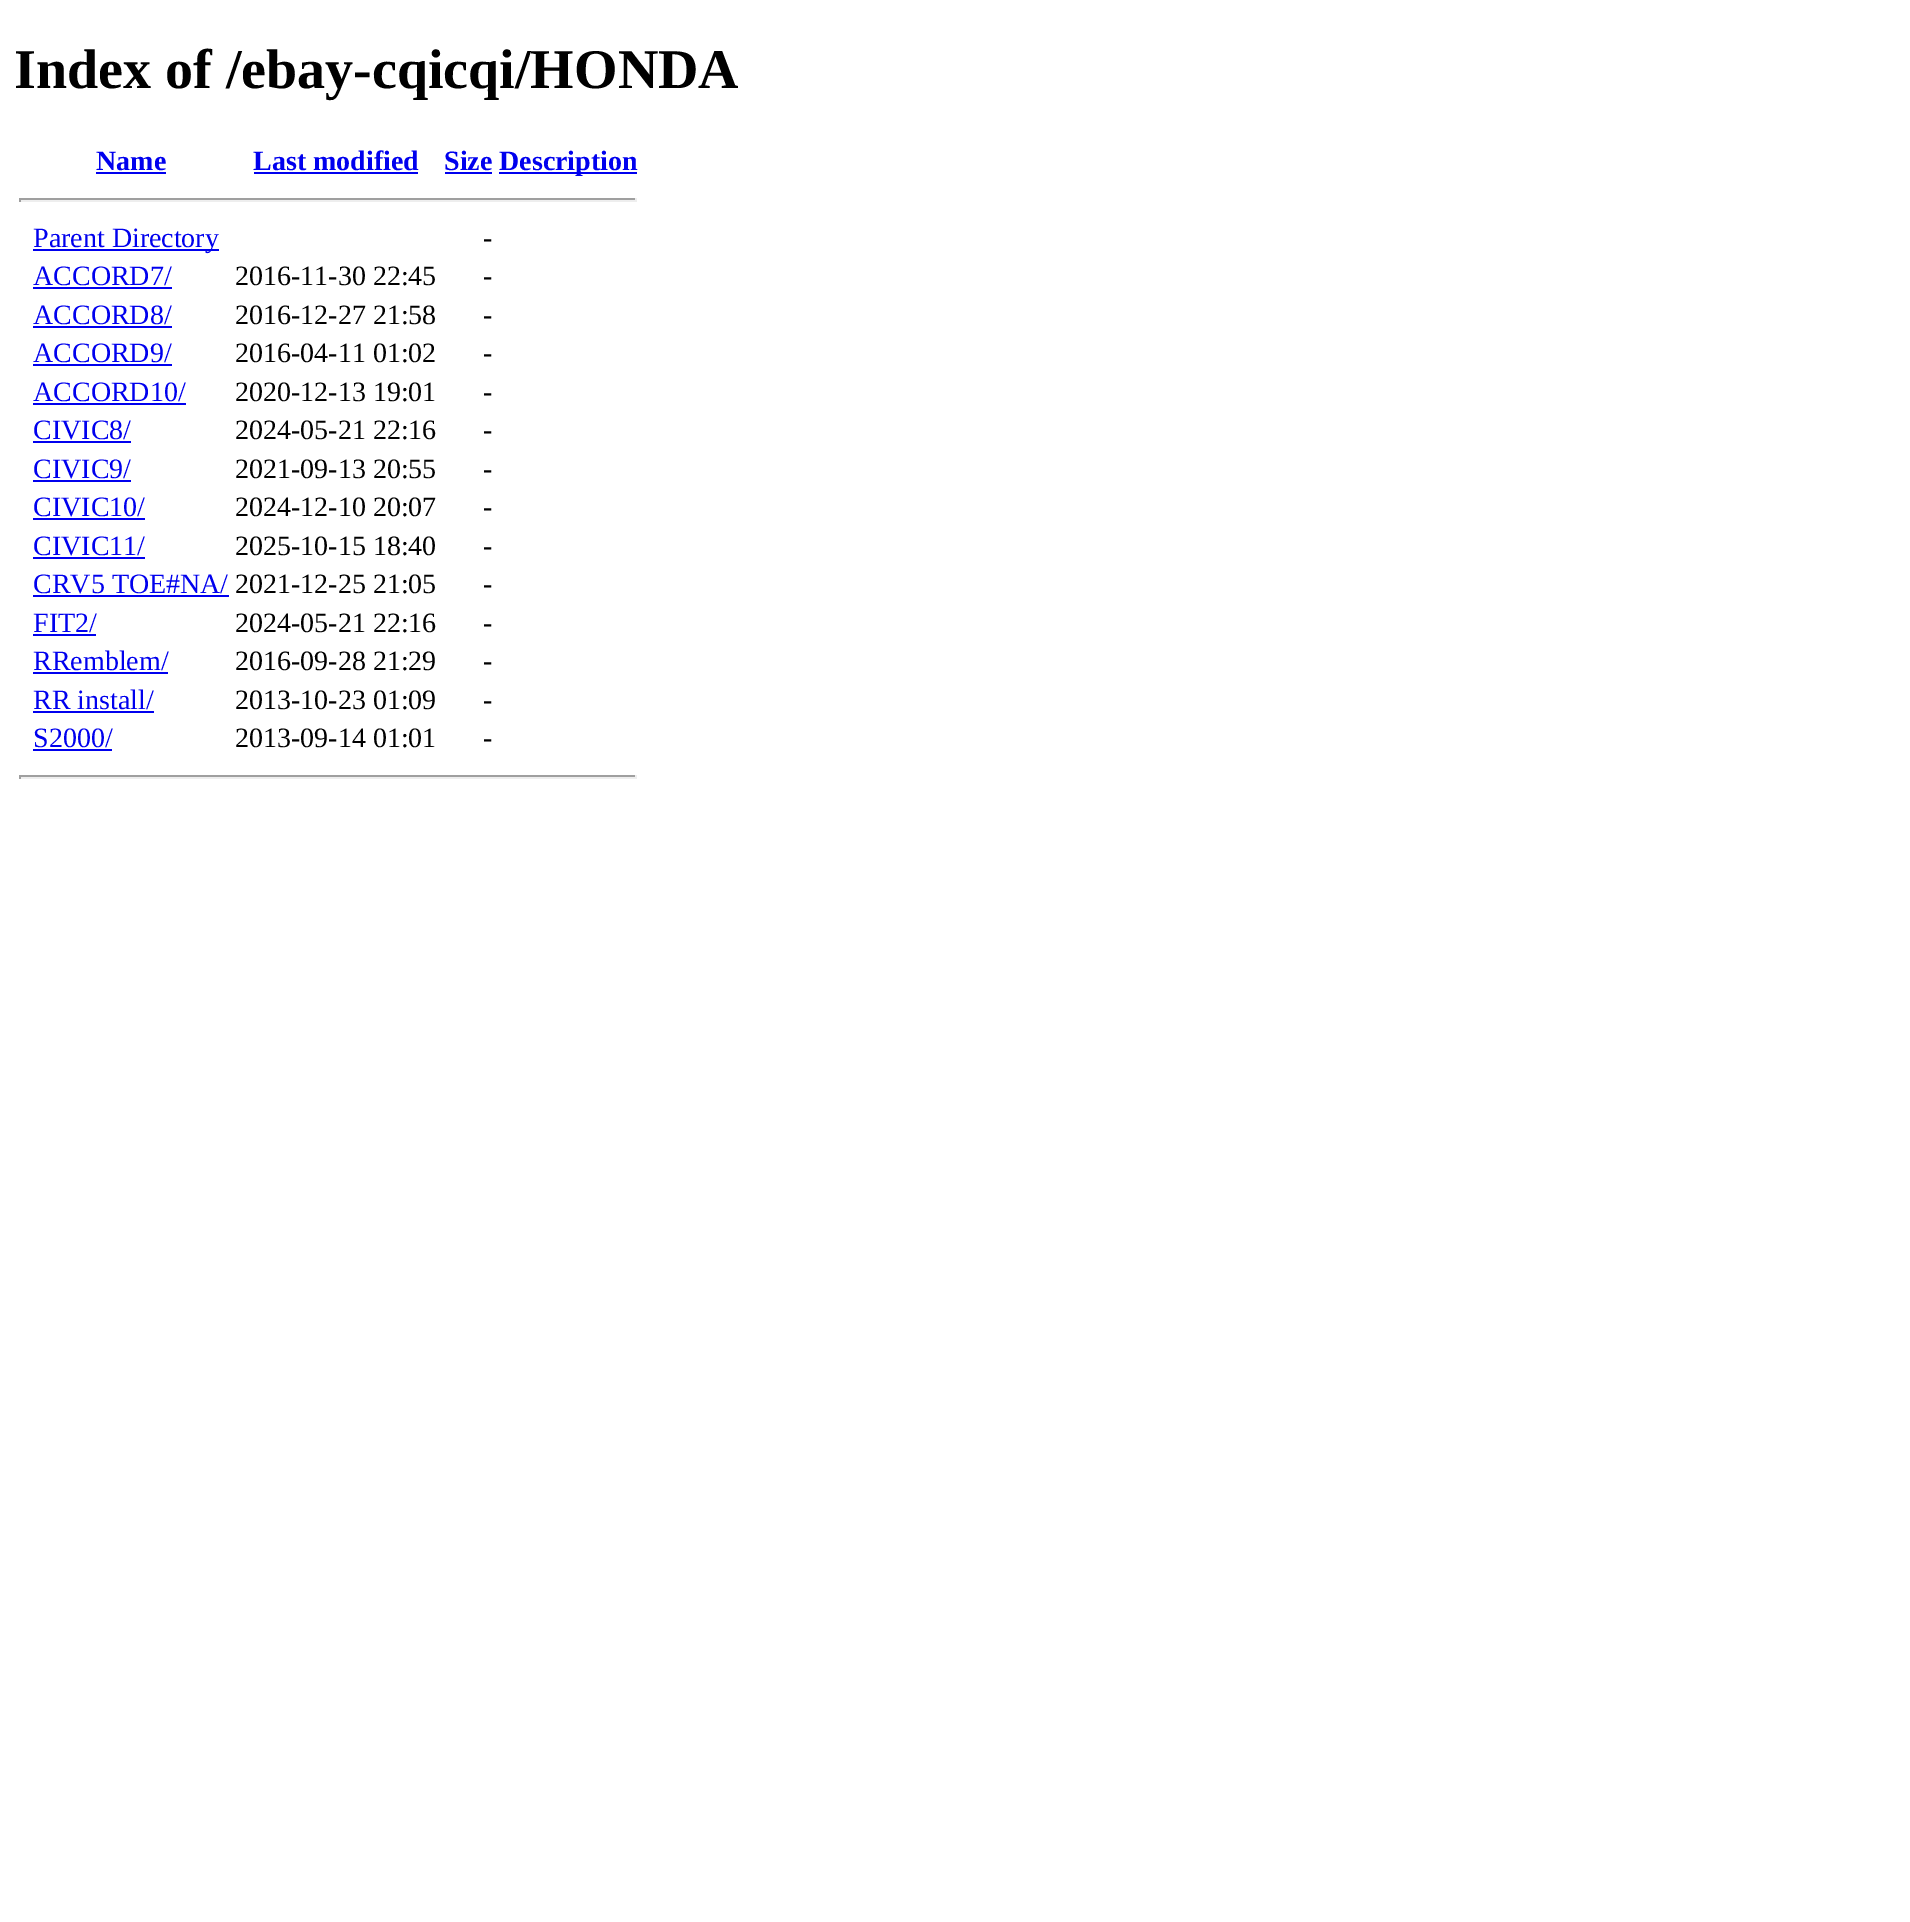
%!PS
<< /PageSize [1910 1922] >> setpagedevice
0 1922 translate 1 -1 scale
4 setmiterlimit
1 setgray
0 0 1910 1922 rectfill
/LiberationSerif-Bold [56 0 0 -56 0 0] selectfont
0 setgray
14 88 moveto (Index of /ebay-cqicqi/HONDA) show
/LiberationSerif-Bold [28 0 0 -28 0 0] selectfont
0 0 0.933 setrgbcolor
96 170 moveto (Name) show
96 172 70 2 rectfill
253 170 moveto (Last modified) show
254 172 164 2 rectfill
444 170 moveto (Size) show
445 172 47 2 rectfill
499 172 138 2 rectfill
499 170 moveto (Description) show
0.624 setgray
19 198 618 2 rectfill
0.933 setgray
635 198 2 4 rectfill
19 200 618 2 rectfill
0.624 setgray
19 198 2 4 rectfill
0 0 0.933 setrgbcolor
33 249 186 2 rectfill
/LiberationSerif-Regular [28 0 0 -28 0 0] selectfont
33 247 moveto (Parent Directory) show
0 setgray
483 247 moveto (-) show
0 0 0.933 setrgbcolor
33 285 moveto (ACCORD7/) show
33 287 139 2 rectfill
0 setgray
235 285 moveto (2016-11-30 22:45) show
483 285 moveto (-) show
0 0 0.933 setrgbcolor
33 324 moveto (ACCORD8/) show
33 326 139 2 rectfill
0 setgray
235 324 moveto (2016-12-27 21:58) show
483 324 moveto (-) show
0 0 0.933 setrgbcolor
33 362 moveto (ACCORD9/) show
33 364 139 2 rectfill
0 setgray
235 362 moveto (2016-04-11 01:02) show
483 362 moveto (-) show
0 0 0.933 setrgbcolor
33 401 moveto (ACCORD10/) show
33 403 153 2 rectfill
0 setgray
235 401 moveto (2020-12-13 19:01) show
483 401 moveto (-) show
0 0 0.933 setrgbcolor
33 439 moveto (CIVIC8/) show
33 441 98 2 rectfill
0 setgray
235 439 moveto (2024-05-21 22:16) show
483 439 moveto (-) show
0 0 0.933 setrgbcolor
33 478 moveto (CIVIC9/) show
33 480 98 2 rectfill
0 setgray
235 478 moveto (2021-09-13 20:55) show
483 478 moveto (-) show
0 0 0.933 setrgbcolor
33 516 moveto (CIVIC10/) show
33 518 112 2 rectfill
0 setgray
235 516 moveto (2024-12-10 20:07) show
483 516 moveto (-) show
0 0 0.933 setrgbcolor
33 555 moveto (CIVIC11/) show
33 557 112 2 rectfill
0 setgray
235 555 moveto (2025-10-15 18:40) show
483 555 moveto (-) show
0 0 0.933 setrgbcolor
33 593 moveto (CRV5 TOE#NA/) show
33 595 196 2 rectfill
0 setgray
235 593 moveto (2021-12-25 21:05) show
483 593 moveto (-) show
0 0 0.933 setrgbcolor
33 632 moveto (FIT2/) show
33 634 63 2 rectfill
0 setgray
235 632 moveto (2024-05-21 22:16) show
483 632 moveto (-) show
0 0 0.933 setrgbcolor
33 670 moveto (RRemblem/) show
33 672 135 2 rectfill
0 setgray
235 670 moveto (2016-09-28 21:29) show
483 670 moveto (-) show
0 0 0.933 setrgbcolor
33 709 moveto (RR install/) show
33 711 121 2 rectfill
0 setgray
235 709 moveto (2013-10-23 01:09) show
483 709 moveto (-) show
0 0 0.933 setrgbcolor
33 747 moveto (S2000/) show
33 749 79 2 rectfill
0 setgray
235 747 moveto (2013-09-14 01:01) show
483 747 moveto (-) show
0.624 setgray
19 775 618 2 rectfill
0.933 setgray
635 775 2 4 rectfill
19 777 618 2 rectfill
0.624 setgray
19 775 2 4 rectfill
showpage
